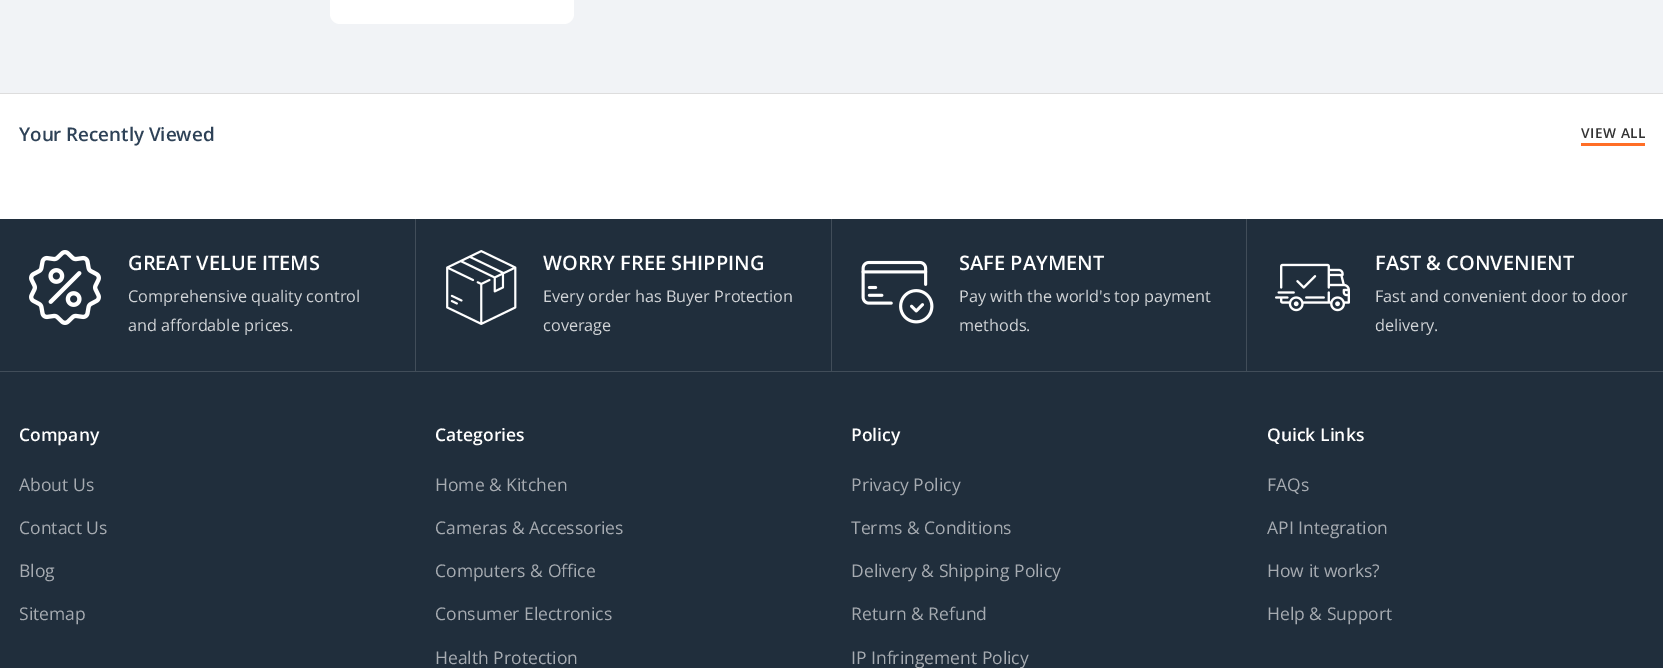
%!PS
<< /PageSize [1663 668] >> setpagedevice
/picture { 5 dict begin { /h /w /y /x /name } { exch def } forall
  gsave x y translate w h scale
  w h 8 [w 0 0 h 0 0] name (r) file false 3 colorimage grestore end } def
0 668 translate 1 -1 scale
4 setmiterlimit
1 setgray
0 0 1663 668 rectfill
0.945 0.953 0.965 setrgbcolor
0 0 1663 93 rectfill
1 setgray
newpath 330 -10 moveto 574 -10 lineto 574 14 lineto 574 19.5 569.5 24 564 24 curveto 340 24 lineto 334.5 24 330 19.5 330 14 curveto closepath fill
0.867 setgray
0 93 1663 1 rectfill
/OpenSans-SemiBold [18.75 0 0 -18.75 0 0] selectfont
0.18 0.259 0.341 setrgbcolor
19 141 moveto (Your Recently Viewed) show
1 0.431 0.149 setrgbcolor
1581 143 64 3 rectfill
/OpenSans-SemiBold [13.75 0 0 -13.75 0 0] selectfont
0.2 setgray
1581 138 moveto 0.5 0 (VIEW ALL) ashow
0.125 0.18 0.235 setrgbcolor
0 219 1663 449 rectfill
0.255 0.302 0.349 setrgbcolor
0 371 1663 1 rectfill
415 219 1 152 rectfill
(img1.rgb) 29 250 72 75 picture
/OpenSans-SemiBold [20 0 0 -20 0 0] selectfont
1 setgray
128 270 moveto (GREAT VELUE ITEMS) show
/OpenSans-Regular [16.25 0 0 -16.25 0 0] selectfont
0.824 0.835 0.847 setrgbcolor
128 302 moveto (Comprehensive quality control) show
128 331 moveto (and affordable prices.) show
0.255 0.302 0.349 setrgbcolor
831 219 1 152 rectfill
(img2.rgb) 446 250 71 75 picture
/OpenSans-SemiBold [20 0 0 -20 0 0] selectfont
1 setgray
543 270 moveto (WORRY FREE SHIPPING) show
/OpenSans-Regular [16.25 0 0 -16.25 0 0] selectfont
0.824 0.835 0.847 setrgbcolor
543 302 moveto (Every order has Buyer Protection) show
543 331 moveto (coverage) show
0.255 0.302 0.349 setrgbcolor
1246 219 1 152 rectfill
(img3.rgb) 861 260 73 64 picture
/OpenSans-SemiBold [20 0 0 -20 0 0] selectfont
1 setgray
959 270 moveto (SAFE PAYMENT) show
/OpenSans-Regular [16.25 0 0 -16.25 0 0] selectfont
0.824 0.835 0.847 setrgbcolor
959 302 moveto (Pay with the world's top payment) show
959 331 moveto (methods.) show
(img4.rgb) 1275 263 75 49 picture
/OpenSans-SemiBold [20 0 0 -20 0 0] selectfont
1 setgray
1375 270 moveto (FAST & CONVENIENT) show
/OpenSans-Regular [16.25 0 0 -16.25 0 0] selectfont
0.824 0.835 0.847 setrgbcolor
1375 302 moveto (Fast and convenient door to door) show
1375 331 moveto (delivery.) show
/OpenSans-SemiBold [17.5 0 0 -17.5 0 0] selectfont
1 setgray
19 441 moveto (Company) show
/OpenSans-Regular [17.5 0 0 -17.5 0 0] selectfont
0.651 0.671 0.694 setrgbcolor
19 491 moveto (About Us) show
19 534 moveto (Contact Us) show
19 577 moveto (Blog) show
19 620 moveto (Sitemap) show
/OpenSans-SemiBold [17.5 0 0 -17.5 0 0] selectfont
1 setgray
435 441 moveto (Categories) show
/OpenSans-Regular [17.5 0 0 -17.5 0 0] selectfont
0.651 0.671 0.694 setrgbcolor
435 491 moveto (Home & Kitchen) show
435 534 moveto (Cameras & Accessories) show
435 577 moveto (Computers & Office) show
435 620 moveto (Consumer Electronics) show
435 664 moveto (Health Protection) show
/OpenSans-SemiBold [17.5 0 0 -17.5 0 0] selectfont
1 setgray
851 441 moveto (Policy) show
/OpenSans-Regular [17.5 0 0 -17.5 0 0] selectfont
0.651 0.671 0.694 setrgbcolor
851 491 moveto (Privacy Policy) show
851 534 moveto (Terms & Conditions) show
851 577 moveto (Delivery & Shipping Policy) show
851 620 moveto (Return & Refund) show
851 664 moveto (IP Infringement Policy) show
/OpenSans-SemiBold [17.5 0 0 -17.5 0 0] selectfont
1 setgray
1267 441 moveto (Quick Links) show
/OpenSans-Regular [17.5 0 0 -17.5 0 0] selectfont
0.651 0.671 0.694 setrgbcolor
1267 491 moveto (FAQs) show
1267 534 moveto (API Integration) show
1267 577 moveto (How it works?) show
1267 620 moveto (Help & Support) show
showpage
